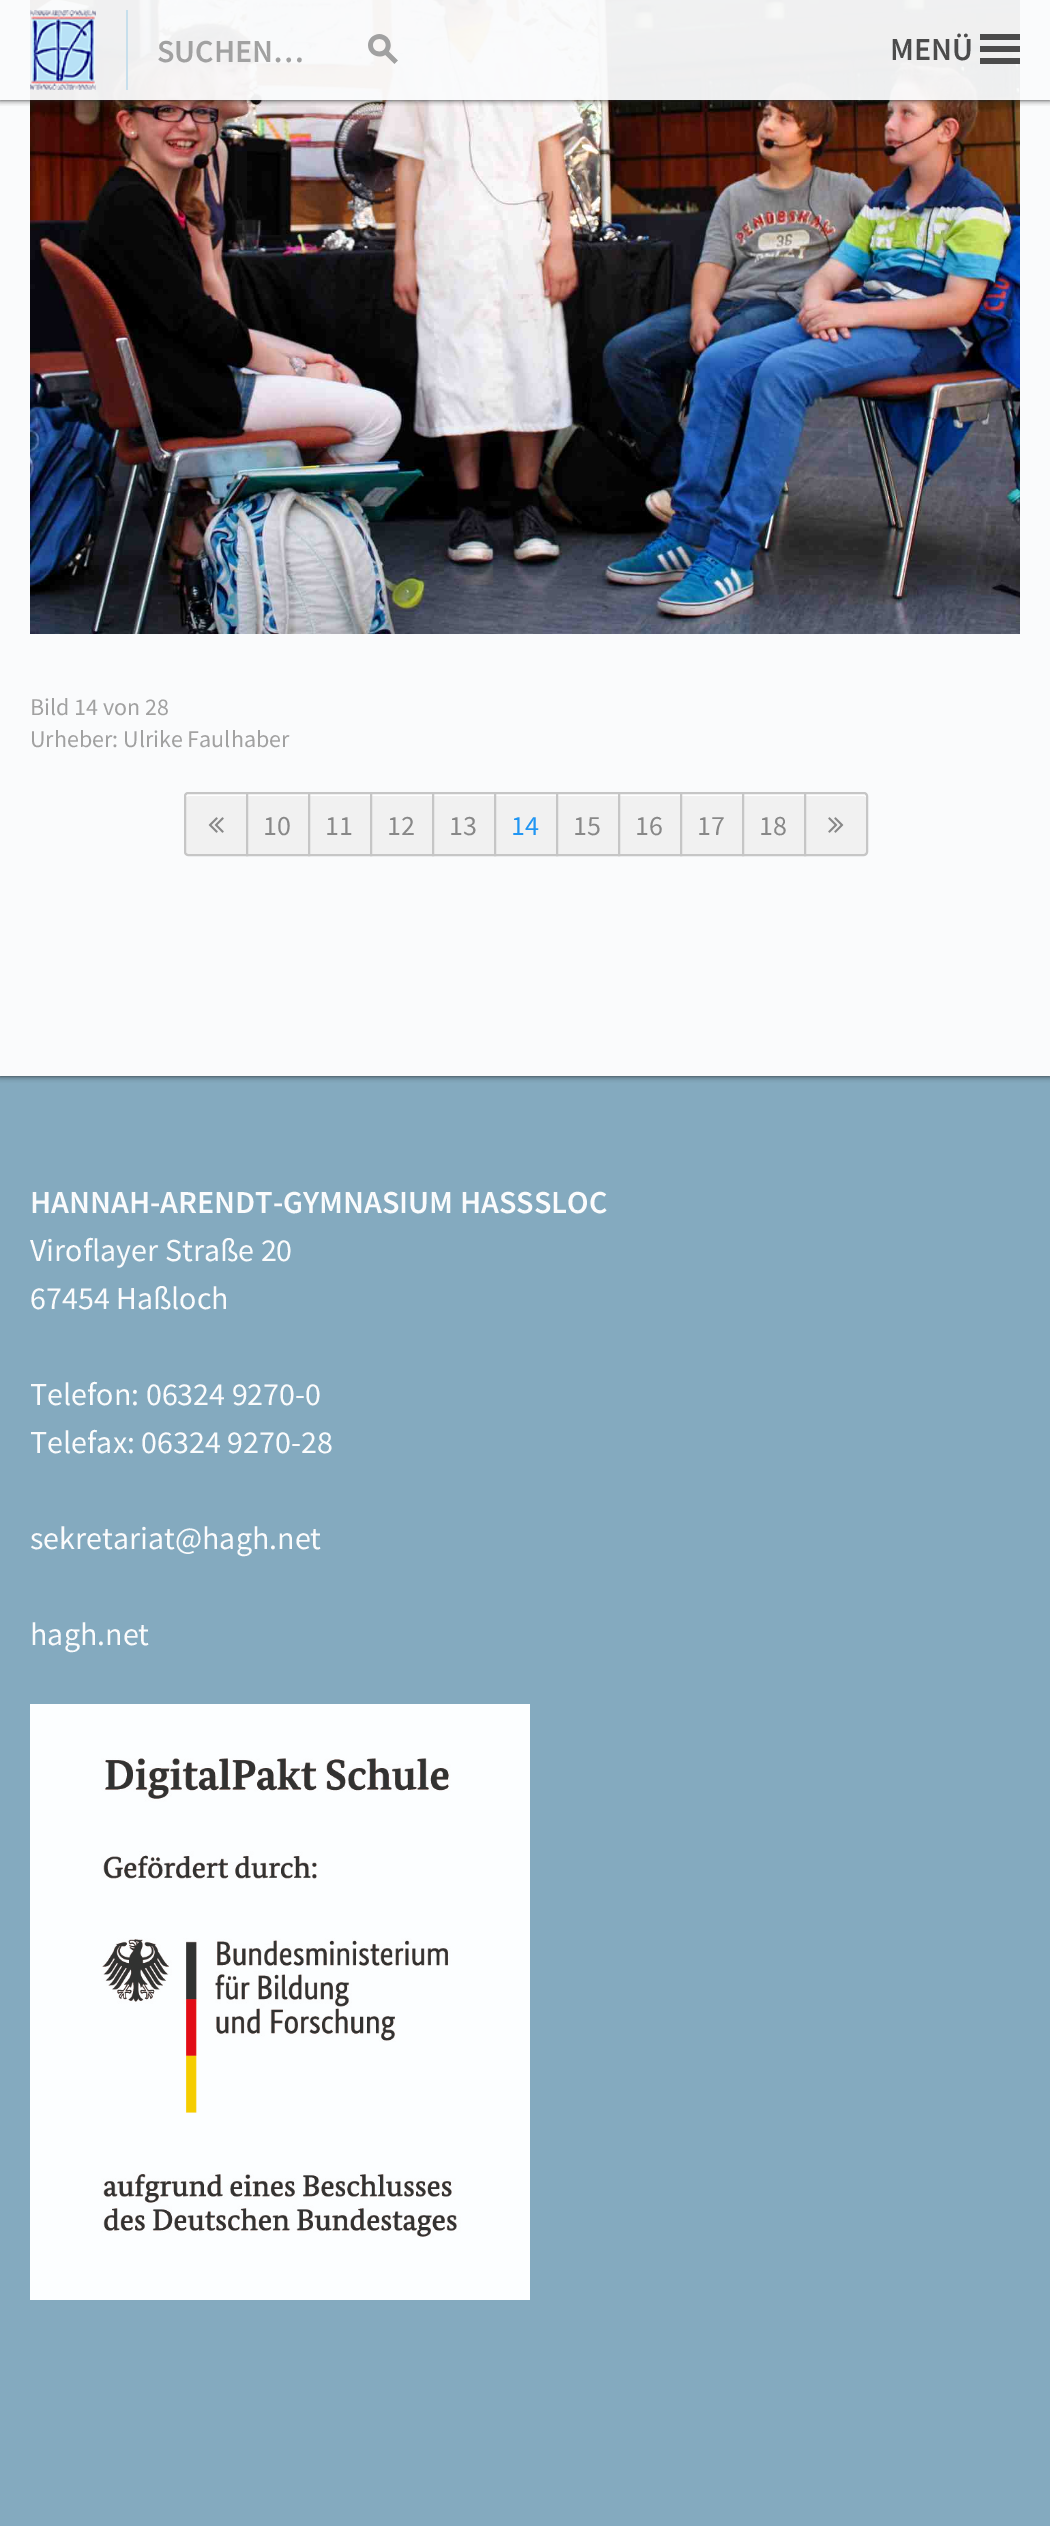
%!PS
<< /PageSize [1050 2526] /PageUsesTransparency true >> setpagedevice
/alpha { dup .setfillconstantalpha .setstrokeconstantalpha } def
/roundrect { 5 dict begin { /r /h /w /y /x } { exch def } forall
  x r add y moveto x w add y 2 copy h add r arct x w add y h add x 1 index r arct
  x y h add x y r arct x y 2 copy exch w add exch r arct closepath end } def
/shadow { 12 dict begin { /a /b /q /h /w /y /x } { exch def } forall gsave /was 0 def
  9 -2 -9 { dup b mul 4 div /e exch def 1 sub .425 mul 2.718 exch exp 1 add a .99 .min exch div /now exch def
    1 1 now sub 1 was sub div sub alpha /was now def
    w h .min e 2 mul add 0 gt { x e sub y e sub w e 2 mul add h e 2 mul add
      q e add b .6 mul add w h .min 2 div e add .min 0 .max roundrect fill } if } for grestore end } def
/picture { 5 dict begin { /h /w /y /x /name } { exch def } forall
  gsave x y translate w h scale
  w h 8 [w 0 0 h 0 0] name (r) file false 3 colorimage grestore end } def
0 .pushpdf14devicefilter
0 2526 translate 1 -1 scale
4 setmiterlimit
0.518 0.667 0.749 setrgbcolor
0 0 1050 2526 rectfill
0.141 setgray
0 -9 1050 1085 0 3 1 shadow
0.98 0.984 0.988 setrgbcolor
0 0 1050 1076 rectfill
(img3.rgb) 30 0 990 634 picture
gsave
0 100 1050 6 rectclip
0.141 setgray
0 0 1050 100 0 3 1 shadow
grestore
0.95 alpha
30 0 990 100 rectfill
1 alpha
(img1.rgb) 30 10 66 80 picture
0.78 0.875 0.925 setrgbcolor
126 10 2 80 rectfill
/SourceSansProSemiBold-SemiBold [32 0 0 -32 0 0] selectfont
0.631 setgray
157 62 moveto (SUCHEN…) show
(img2.rgb) 368 34 30 30 picture
0.294 setgray
890 60 moveto (MENÜ) show
980 34 40 6 rectfill
980 46 40 6 rectfill
980 58 40 6 rectfill
/SourceSansPro-Regular [24 0 0 -24 0 0] selectfont
0.631 setgray
30 715 moveto (Bild 14 von 28) show
30 747 moveto (Urheber: Ulrike Faulhaber) show
0.945 setgray
newpath 188 792 moveto 248 792 lineto 248 856 lineto 188 856 lineto 186 856 184 854 184 852 curveto 184 796 lineto 184 794 186 792 188 792 curveto closepath fill
1 setgray
newpath 188 796 moveto 246 796 lineto 246 794 lineto 188 794 lineto 187 794 186 795 186 796 curveto 186 797 lineto closepath fill
0.776 setgray
2 setlinewidth
newpath 188 793 moveto 247 793 lineto 247 855 lineto 188 855 lineto 186.5 855 185 853.5 185 852 curveto 185 796 lineto 185 794.5 186.5 793 188 793 curveto closepath stroke
(img4.rgb) 208 817 16 16 picture
0.945 setgray
248 796 60 58 rectfill
gsave
248 794 60 60 rectclip
1 setgray
newpath 50 596 moveto 506 596 lineto 506 1052 lineto 50 1052 lineto closepath 248 796 moveto 308 796 lineto 309 796 310 797 310 798 curveto 310 858 lineto 310 859 309 860 308 860 curveto 248 860 lineto 247 860 246 859 246 858 curveto 246 798 lineto 246 797 247 796 248 796 curveto closepath eofill
grestore
0.776 setgray
247 793 62 62 rectstroke
/SourceSansPro-Regular [28 0 0 -28 0 0] selectfont
0.533 setgray
263 835 moveto (10) show
0.945 setgray
310 796 60 58 rectfill
gsave
310 794 60 60 rectclip
1 setgray
newpath 112 596 moveto 568 596 lineto 568 1052 lineto 112 1052 lineto closepath 310 796 moveto 370 796 lineto 371 796 372 797 372 798 curveto 372 858 lineto 372 859 371 860 370 860 curveto 310 860 lineto 309 860 308 859 308 858 curveto 308 798 lineto 308 797 309 796 310 796 curveto closepath eofill
grestore
0.776 setgray
309 793 62 62 rectstroke
0.533 setgray
325 835 moveto (11) show
0.945 setgray
372 796 60 58 rectfill
gsave
372 794 60 60 rectclip
1 setgray
newpath 174 596 moveto 630 596 lineto 630 1052 lineto 174 1052 lineto closepath 372 796 moveto 432 796 lineto 433 796 434 797 434 798 curveto 434 858 lineto 434 859 433 860 432 860 curveto 372 860 lineto 371 860 370 859 370 858 curveto 370 798 lineto 370 797 371 796 372 796 curveto closepath eofill
grestore
0.776 setgray
371 793 62 62 rectstroke
0.533 setgray
387 835 moveto (12) show
0.945 setgray
434 796 60 58 rectfill
gsave
434 794 60 60 rectclip
1 setgray
newpath 236 596 moveto 692 596 lineto 692 1052 lineto 236 1052 lineto closepath 434 796 moveto 494 796 lineto 495 796 496 797 496 798 curveto 496 858 lineto 496 859 495 860 494 860 curveto 434 860 lineto 433 860 432 859 432 858 curveto 432 798 lineto 432 797 433 796 434 796 curveto closepath eofill
grestore
0.776 setgray
433 793 62 62 rectstroke
0.533 setgray
449 835 moveto (13) show
0.945 setgray
496 796 60 58 rectfill
gsave
496 794 60 60 rectclip
1 setgray
newpath 298 596 moveto 754 596 lineto 754 1052 lineto 298 1052 lineto closepath 496 796 moveto 556 796 lineto 557 796 558 797 558 798 curveto 558 858 lineto 558 859 557 860 556 860 curveto 496 860 lineto 495 860 494 859 494 858 curveto 494 798 lineto 494 797 495 796 496 796 curveto closepath eofill
grestore
0.776 setgray
495 793 62 62 rectstroke
0.129 0.588 0.953 setrgbcolor
511 835 moveto (14) show
0.945 setgray
558 796 60 58 rectfill
gsave
558 794 60 60 rectclip
1 setgray
newpath 360 596 moveto 816 596 lineto 816 1052 lineto 360 1052 lineto closepath 558 796 moveto 618 796 lineto 619 796 620 797 620 798 curveto 620 858 lineto 620 859 619 860 618 860 curveto 558 860 lineto 557 860 556 859 556 858 curveto 556 798 lineto 556 797 557 796 558 796 curveto closepath eofill
grestore
0.776 setgray
557 793 62 62 rectstroke
0.533 setgray
573 835 moveto (15) show
0.945 setgray
620 796 60 58 rectfill
gsave
620 794 60 60 rectclip
1 setgray
newpath 422 596 moveto 878 596 lineto 878 1052 lineto 422 1052 lineto closepath 620 796 moveto 680 796 lineto 681 796 682 797 682 798 curveto 682 858 lineto 682 859 681 860 680 860 curveto 620 860 lineto 619 860 618 859 618 858 curveto 618 798 lineto 618 797 619 796 620 796 curveto closepath eofill
grestore
0.776 setgray
619 793 62 62 rectstroke
0.533 setgray
635 835 moveto (16) show
0.945 setgray
682 796 60 58 rectfill
gsave
682 794 60 60 rectclip
1 setgray
newpath 484 596 moveto 940 596 lineto 940 1052 lineto 484 1052 lineto closepath 682 796 moveto 742 796 lineto 743 796 744 797 744 798 curveto 744 858 lineto 744 859 743 860 742 860 curveto 682 860 lineto 681 860 680 859 680 858 curveto 680 798 lineto 680 797 681 796 682 796 curveto closepath eofill
grestore
0.776 setgray
681 793 62 62 rectstroke
0.533 setgray
697 835 moveto (17) show
0.945 setgray
744 796 60 58 rectfill
gsave
744 794 60 60 rectclip
1 setgray
newpath 546 596 moveto 1002 596 lineto 1002 1052 lineto 546 1052 lineto closepath 744 796 moveto 804 796 lineto 805 796 806 797 806 798 curveto 806 858 lineto 806 859 805 860 804 860 curveto 744 860 lineto 743 860 742 859 742 858 curveto 742 798 lineto 742 797 743 796 744 796 curveto closepath eofill
grestore
0.776 setgray
743 793 62 62 rectstroke
0.533 setgray
759 835 moveto (18) show
0.945 setgray
newpath 804 792 moveto 864 792 lineto 866 792 868 794 868 796 curveto 868 852 lineto 868 854 866 856 864 856 curveto 804 856 lineto closepath fill
1 setgray
newpath 806 796 moveto 864 796 lineto 866 797 lineto 866 796 lineto 866 795 865 794 864 794 curveto 806 794 lineto closepath fill
0.776 setgray
newpath 805 793 moveto 864 793 lineto 865.5 793 867 794.5 867 796 curveto 867 852 lineto 867 853.5 865.5 855 864 855 curveto 805 855 lineto closepath stroke
(img5.rgb) 828 817 16 16 picture
/SourceSansProSemiBold-SemiBold [32 0 0 -32 0 0] selectfont
0.98 0.984 0.988 setrgbcolor
30 1213 moveto (HANNAH-ARENDT-GYMNASIUM HASSSLOC) show
/SourceSansPro-Regular [32 0 0 -32 0 0] selectfont
30 1261 moveto (Viroflayer Straße 20) show
30 1309 moveto (67454 Haßloch) show
30 1405 moveto (Telefon: 06324 9270-0) show
30 1453 moveto (Telefax: 06324 9270-28) show
30 1549 moveto (sekretariat@hagh.net) show
30 1645 moveto (hagh.net) show
(img6.rgb) 30 1704 500 596 picture
.poppdf14devicefilter showpage
